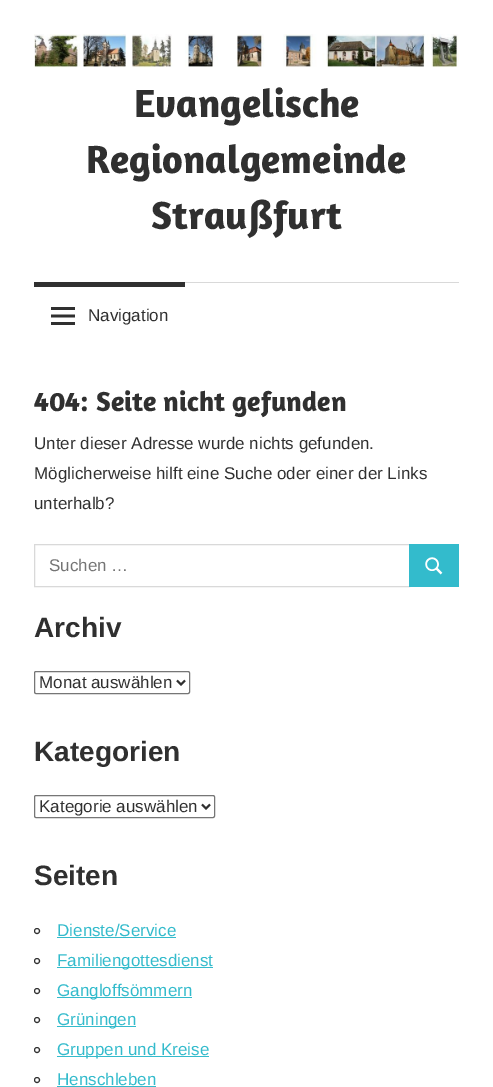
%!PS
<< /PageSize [493 1087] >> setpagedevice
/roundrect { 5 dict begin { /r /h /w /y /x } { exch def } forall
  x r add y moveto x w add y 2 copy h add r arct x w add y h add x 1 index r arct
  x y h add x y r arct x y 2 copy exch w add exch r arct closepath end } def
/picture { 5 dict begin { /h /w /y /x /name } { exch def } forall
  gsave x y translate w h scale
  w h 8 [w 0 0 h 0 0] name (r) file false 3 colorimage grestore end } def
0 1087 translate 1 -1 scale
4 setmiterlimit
1 setgray
0 0 493 1087 rectfill
(img1.rgb) 34 34 425 34 picture
/Amaranth-Bold [40 0 0 -40 0 0] selectfont
0.188 setgray
134 117 moveto (Evangelische) show
86 173 moveto (Regionalgemeinde) show
151 229 moveto (Straußfurt) show
0.851 setgray
185 282 274 1 rectfill
0.188 setgray
34 282 151 5 rectfill
(img2.rgb) 51 307 24 18 picture
/LiberationSans-Regular [17 0 0 -17 0 0] selectfont
88 321 moveto (Navigation) show
/Amaranth-Bold [28 0 0 -28 0 0] selectfont
34 411 moveto (404: Seite nicht gefunden) show
/LiberationSans-Regular [17 0 0 -17 0 0] selectfont
34 449 moveto (Unter dieser Adresse wurde nichts gefunden.) show
34 479 moveto (Möglicherweise hilft eine Suche oder einer der Links) show
34 509 moveto (unterhalb?) show
0.851 setgray
34.5 544.5 375 42 rectstroke
0.459 setgray
49 571 moveto (Suchen …) show
0.2 0.733 0.8 setrgbcolor
409 544 50 43 rectfill
(img3.rgb) 425 557 18 18 picture
/LiberationSans-Bold [28 0 0 -28 0 0] selectfont
0.188 setgray
34 637 moveto (Archiv) show
0.463 setgray
34.5 671.5 155 22 1.5 roundrect stroke
0.188 setgray
2 setlinewidth
newpath 177 680.5 moveto 181 684.5 lineto 185 680.5 lineto stroke
/LiberationSans-Regular [17 0 0 -17 0 0] selectfont
39 688 moveto (Monat auswählen) show
/LiberationSans-Bold [28 0 0 -28 0 0] selectfont
34 761 moveto (Kategorien) show
0.463 setgray
1 setlinewidth
34.5 795.5 180 22 1.5 roundrect stroke
0.188 setgray
2 setlinewidth
newpath 202 804.5 moveto 206 808.5 lineto 210 804.5 lineto stroke
/LiberationSans-Regular [17 0 0 -17 0 0] selectfont
39 812 moveto (Kategorie auswählen) show
/LiberationSans-Bold [28 0 0 -28 0 0] selectfont
34 885 moveto (Seiten) show
1 setlinewidth
newpath 37 931 2.5 0 360 arc closepath stroke
/LiberationSans-Regular [17 0 0 -17 0 0] selectfont
0.2 0.733 0.8 setrgbcolor
57 936 moveto (Dienste/Service) show
57 937 119 1 rectfill
0.188 setgray
newpath 37 961 2.5 0 360 arc closepath stroke
0.2 0.733 0.8 setrgbcolor
57 967 156 1 rectfill
57 966 moveto (Familiengottesdienst) show
0.188 setgray
newpath 37 991 2.5 0 360 arc closepath stroke
0.2 0.733 0.8 setrgbcolor
57 997 135 1 rectfill
57 996 moveto (Gangloffsömmern) show
0.188 setgray
newpath 37 1020 2.5 0 360 arc closepath stroke
0.2 0.733 0.8 setrgbcolor
57 1026 79 1 rectfill
57 1025 moveto (Grüningen) show
0.188 setgray
newpath 37 1050 2.5 0 360 arc closepath stroke
0.2 0.733 0.8 setrgbcolor
57 1056 152 1 rectfill
57 1055 moveto (Gruppen und Kreise) show
0.188 setgray
newpath 37 1080 2.5 0 360 arc closepath stroke
0.2 0.733 0.8 setrgbcolor
57 1085 moveto (Henschleben) show
57 1086 99 1 rectfill
showpage
